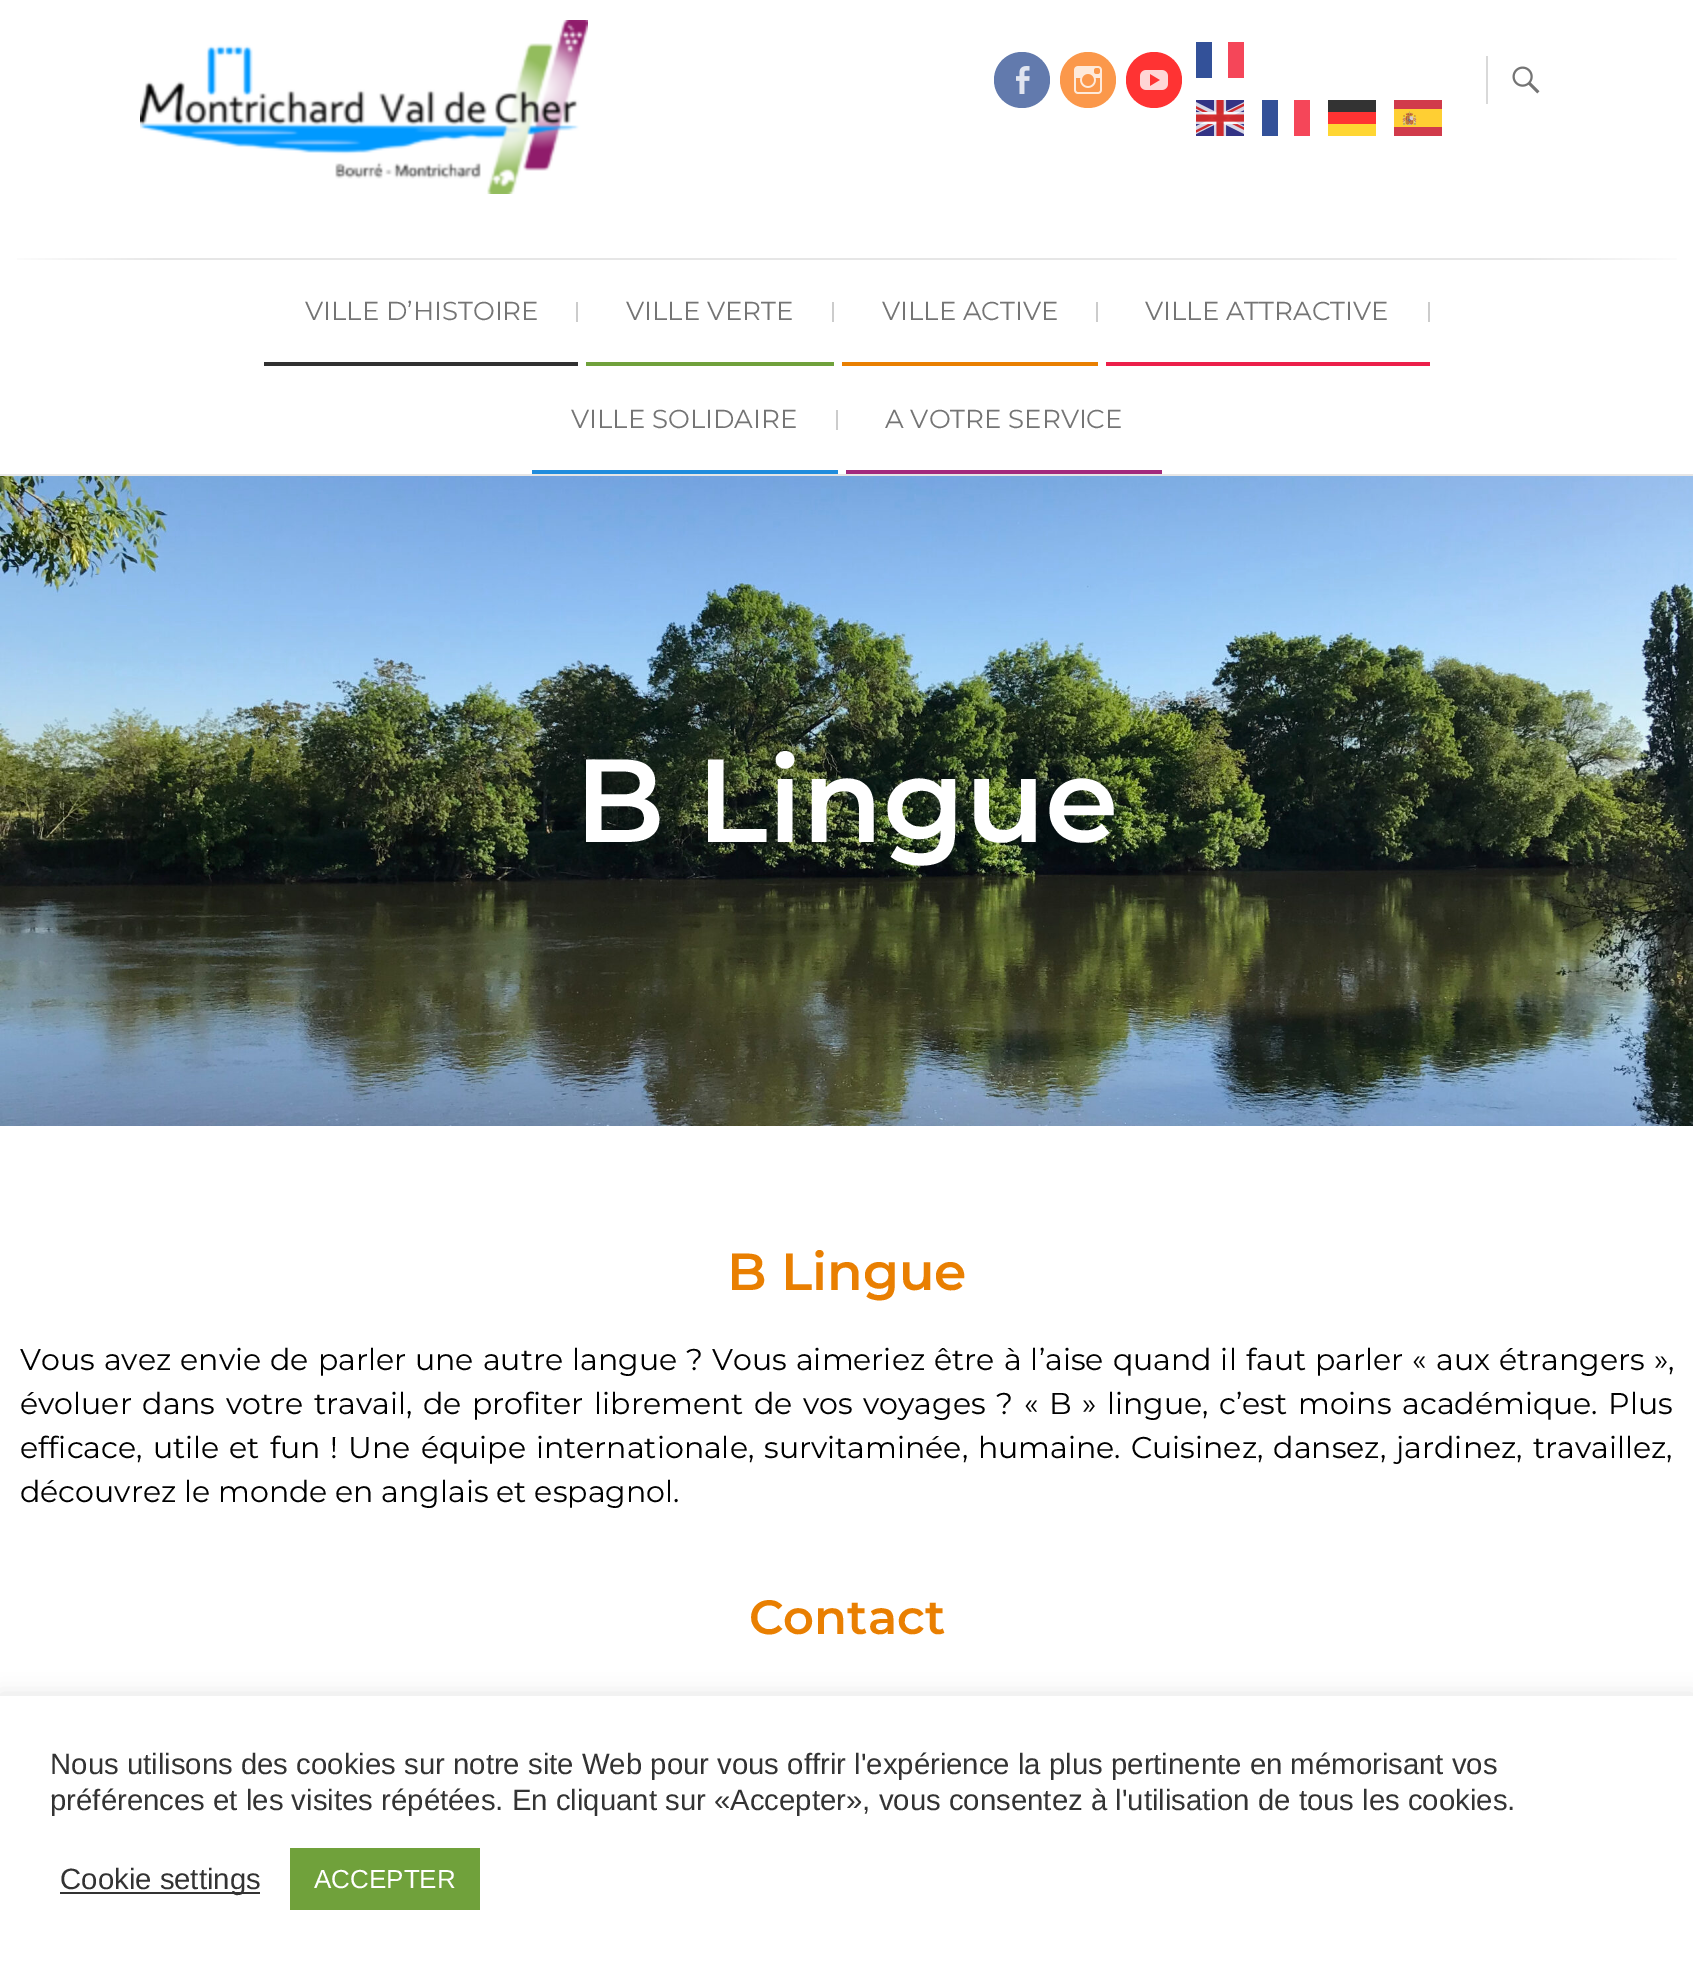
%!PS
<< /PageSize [1693 1969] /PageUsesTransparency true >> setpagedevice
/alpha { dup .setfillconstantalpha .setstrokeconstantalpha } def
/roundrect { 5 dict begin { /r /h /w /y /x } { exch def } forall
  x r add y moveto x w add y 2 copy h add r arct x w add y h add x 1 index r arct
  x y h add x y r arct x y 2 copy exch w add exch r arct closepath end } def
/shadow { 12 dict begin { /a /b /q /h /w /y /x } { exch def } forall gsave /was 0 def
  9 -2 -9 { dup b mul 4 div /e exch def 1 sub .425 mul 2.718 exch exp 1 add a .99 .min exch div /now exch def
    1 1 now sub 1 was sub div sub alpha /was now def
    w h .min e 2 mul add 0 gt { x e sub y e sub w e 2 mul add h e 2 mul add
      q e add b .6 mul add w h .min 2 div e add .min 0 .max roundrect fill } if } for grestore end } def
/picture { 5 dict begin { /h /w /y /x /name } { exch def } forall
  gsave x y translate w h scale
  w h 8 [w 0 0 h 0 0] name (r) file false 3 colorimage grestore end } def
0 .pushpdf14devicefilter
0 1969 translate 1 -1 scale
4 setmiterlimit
1 setgray
0 0 1693 1969 rectfill
(img1.rgb) 140 20 448 174 picture
0.384 0.478 0.678 setrgbcolor
newpath 1022 80 28 0 360 arc closepath fill
(img2.rgb) 1016 66 14 28 picture
0.984 0.596 0.294 setrgbcolor
newpath 1088 80 28 0 360 arc closepath fill
(img3.rgb) 1074 66 28 28 picture
1 0.2 0.2 setrgbcolor
newpath 1154 80 28 0 360 arc closepath fill
(img4.rgb) 1140 70 28 20 picture
0.2 0.318 0.6 setrgbcolor
1196 42 16 36 rectfill
0.961 0.275 0.349 setrgbcolor
1228 42 16 36 rectfill
(img5.rgb) 1196 100 48 36 picture
0.2 0.318 0.6 setrgbcolor
1262 100 16 36 rectfill
0.961 0.275 0.349 setrgbcolor
1294 100 16 36 rectfill
0.2 setgray
1328 100 48 12 rectfill
1 0.2 0.2 setrgbcolor
1328 112 48 12 rectfill
1 0.839 0.2 setrgbcolor
1328 124 48 12 rectfill
(img6.rgb) 1394 100 48 36 picture
0.851 setgray
1486 56 2 48 rectfill
(img7.rgb) 1512 66 28 28 picture
0.902 setgray
0 474 1693 2 rectfill
gsave newpath 17 258 moveto 1677 258 lineto 1677 260 lineto 17 260 lineto closepath clip newpath
<< /ShadingType 2 /ColorSpace /DeviceRGB /Coords [0 259 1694 259] /Extend [true true] /Function << /FunctionType 3 /Domain [0 1] /Functions [<< /FunctionType 2 /Domain [0 1] /C0 [1 1 1] /C1 [0.902 0.902 0.902] /N 1 >> << /FunctionType 2 /Domain [0 1] /C0 [0.902 0.902 0.902] /C1 [0.902 0.902 0.902] /N 1 >> << /FunctionType 2 /Domain [0 1] /C0 [0.902 0.902 0.902] /C1 [1 1 1] /N 1 >>] /Bounds [0.1 0.9] /Encode [0 1 0 1 0 1] >> >> shfill grestore
0.192 setgray
264 362 314 4 rectfill
/Montserrat-Regular [26 0 0 -26 0 0] selectfont
0.455 setgray
305 320 moveto (VILLE D’HISTOIRE) show
0.8 setgray
576 302 2 20 rectfill
0.439 0.631 0.231 setrgbcolor
586 362 248 4 rectfill
0.455 setgray
626 320 moveto (VILLE VERTE) show
0.8 setgray
832 302 2 20 rectfill
0.914 0.498 0.004 setrgbcolor
842 362 256 4 rectfill
0.455 setgray
882 320 moveto (VILLE ACTIVE) show
0.8 setgray
1096 302 2 20 rectfill
0.925 0.122 0.29 setrgbcolor
1106 362 324 4 rectfill
0.455 setgray
1145 320 moveto (VILLE ATTRACTIVE) show
0.8 setgray
1428 302 2 20 rectfill
0.125 0.549 0.867 setrgbcolor
532 470 306 4 rectfill
0.455 setgray
571 428 moveto (VILLE SOLIDAIRE) show
0.8 setgray
836 410 2 20 rectfill
0.639 0.165 0.49 setrgbcolor
846 470 316 4 rectfill
0.455 setgray
885 428 moveto (A VOTRE SERVICE) show
(img8.rgb) 0 476 1693 650 picture
/Montserrat-SemiBold [118 0 0 -118 0 0] selectfont
1 setgray
575 842 moveto (B Lingue) show
/Montserrat-SemiBold [52 0 0 -52 0 0] selectfont
0.914 0.498 0.004 setrgbcolor
727 1290 moveto (B Lingue) show
/Montserrat-Regular [30 0 0 -30 0 0] selectfont
0 setgray
20 1370 moveto 1.25 0 32 (Vous avez envie de parler une autre langue ? Vous aimeriez être à l’aise quand il faut parler « aux étrangers »,) widthshow
20 1414 moveto 2.75 0 32 (évoluer dans votre travail, de profiter librement de vos voyages ? « B » lingue, c’est moins académique. Plus) widthshow
20 1458 moveto 2.25 0 32 (efficace, utile et fun ! Une équipe internationale, survitaminée, humaine. Cuisinez, dansez, jardinez, travaillez,) widthshow
20 1502 moveto (découvrez le monde en anglais et espagnol.) show
/Montserrat-SemiBold [48 0 0 -48 0 0] selectfont
0.914 0.498 0.004 setrgbcolor
749 1634 moveto (Contact) show
0.675 0.671 0.671 setrgbcolor
0 1694 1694 274 0 10 0.3 shadow
1 setgray
0 1696 1693 273 rectfill
/LiberationSans-Regular [29.35 0 0 -29.35 0 0] selectfont
0.2 setgray
50 1774 moveto (Nous utilisons des cookies sur notre site Web pour vous offrir l'expérience la plus pertinente en mémorisant vos) show
50 1810 moveto (préférences et les visites répétées. En cliquant sur «Accepter», vous consentez à l'utilisation de tous les cookies.) show
60 1892 200 2 rectfill
60 1889 moveto (Cookie settings) show
0.439 0.631 0.231 setrgbcolor
290 1848 190 62 rectfill
/LiberationSans-Regular [26 0 0 -26 0 0] selectfont
1 setgray
314 1888 moveto (ACCEPTER) show
.poppdf14devicefilter showpage
